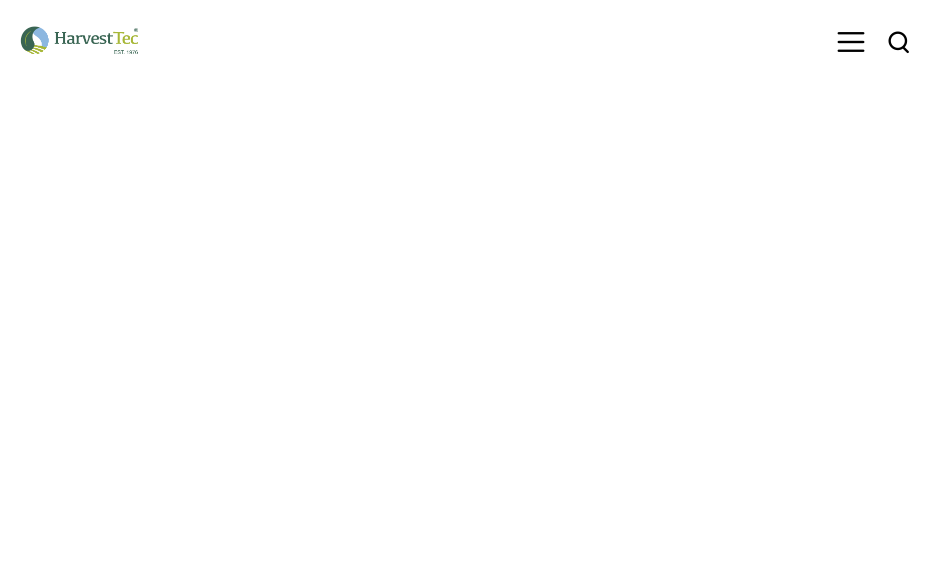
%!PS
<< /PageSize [933 580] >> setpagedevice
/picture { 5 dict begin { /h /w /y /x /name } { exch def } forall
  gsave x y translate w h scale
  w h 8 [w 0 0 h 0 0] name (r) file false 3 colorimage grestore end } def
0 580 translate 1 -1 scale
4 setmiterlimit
1 setgray
0 0 933 580 rectfill
(img1.rgb) 20 26 118 28 picture
(img2.rgb) 837 32 28 20 picture
(img3.rgb) 888 31 21 23 picture
showpage
